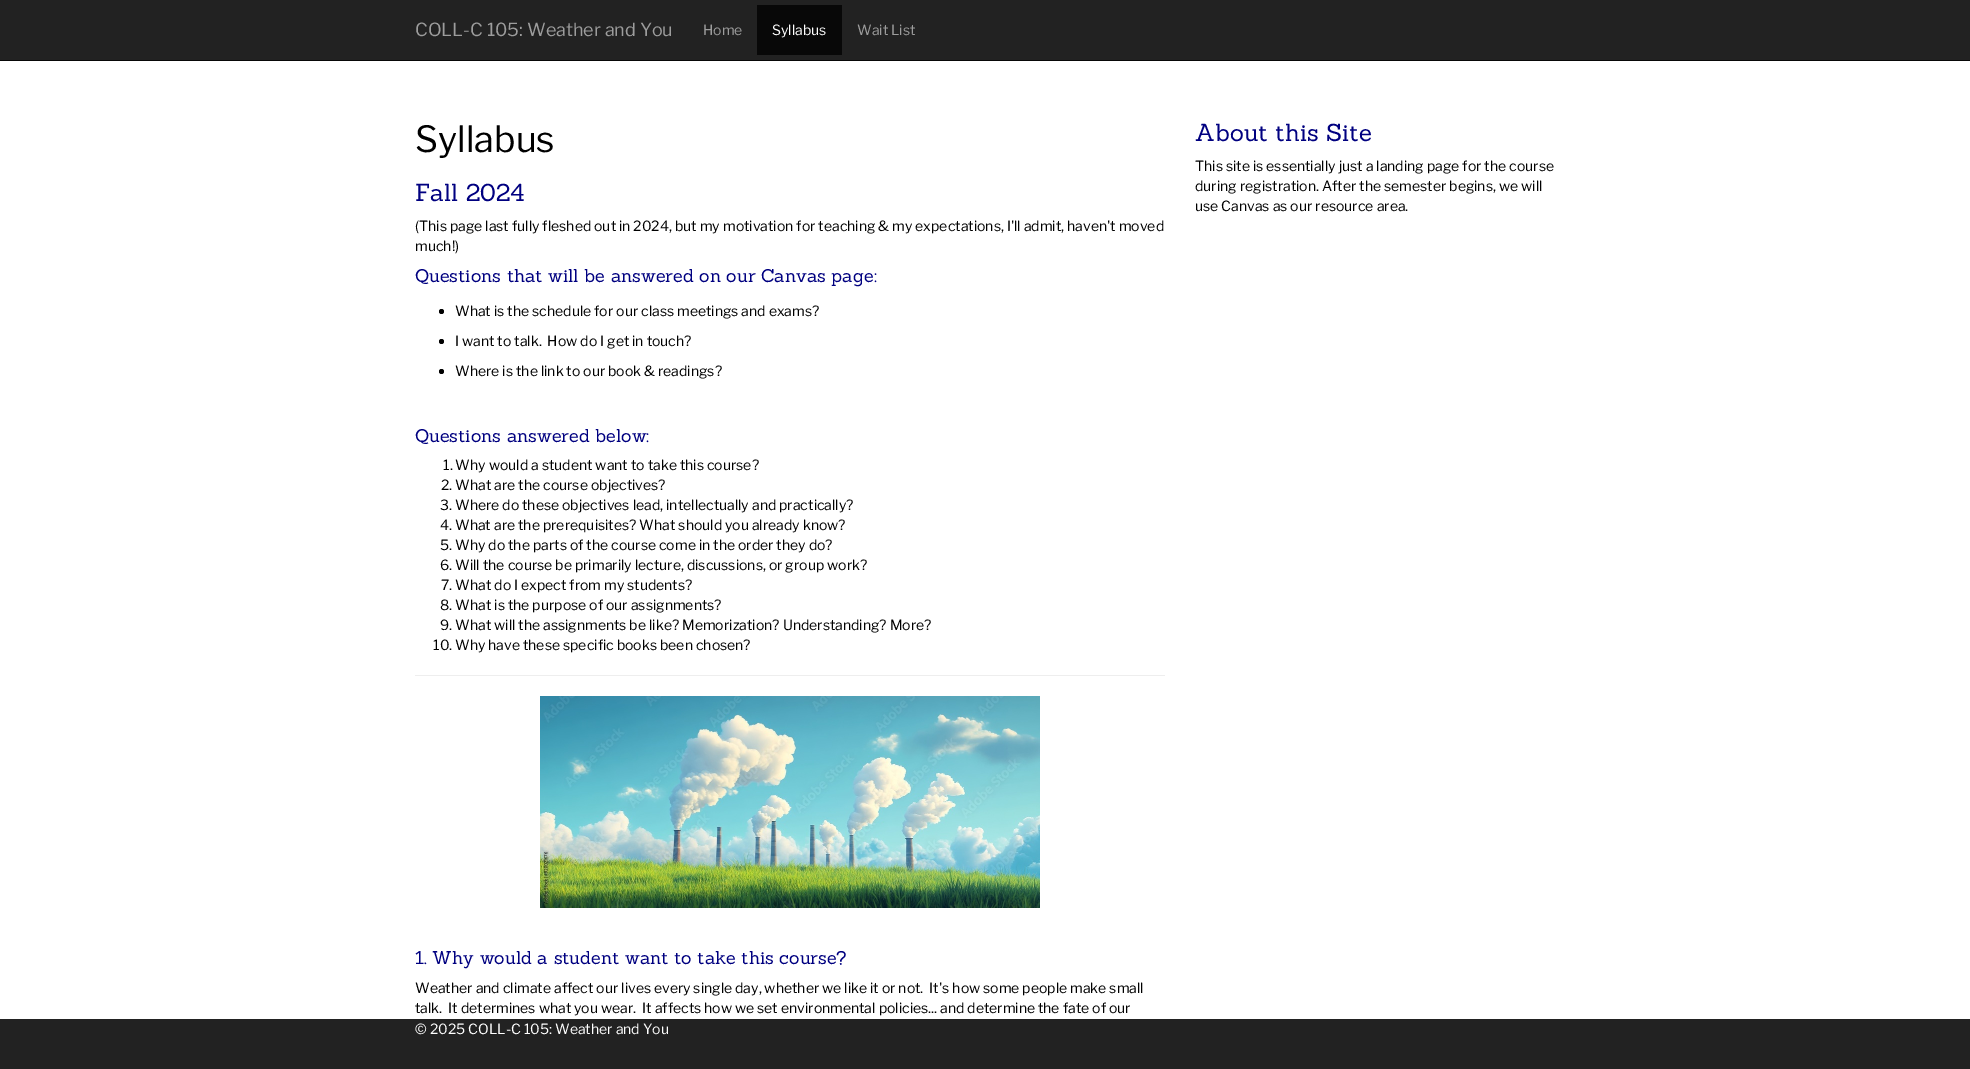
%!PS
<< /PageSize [1970 1069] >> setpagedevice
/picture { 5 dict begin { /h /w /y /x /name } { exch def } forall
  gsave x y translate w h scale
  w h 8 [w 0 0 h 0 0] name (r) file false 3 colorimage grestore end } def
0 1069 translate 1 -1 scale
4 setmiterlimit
1 setgray
0 0 1970 1069 rectfill
0.133 setgray
0 0 1970 60 rectfill
0.031 setgray
0 60 1970 1 rectfill
/LibreFranklin-Thin [18 0 0 -18 0 0] selectfont
0.616 setgray
415 36 moveto (COLL-C 105: Weather and You) show
/LibreFranklin-Thin [14 0 0 -14 0 0] selectfont
703 35 moveto (Home) show
0.031 setgray
757 5 85 50 rectfill
1 setgray
772 35 moveto (Syllabus) show
0.616 setgray
857 35 moveto (Wait List) show
/LibreFranklin-Thin [36 0 0 -36 0 0] selectfont
0 setgray
415 152 moveto (Syllabus) show
/Sanchez-Regular [24 0 0 -24 0 0] selectfont
0 0 0.502 setrgbcolor
415 201 moveto (Fall 2024) show
/LibreFranklin-Thin [14 0 0 -14 0 0] selectfont
0 setgray
415 231 moveto (\(This page last fully fleshed out in 2024, but my motivation for teaching & my expectations, I'll admit, haven't moved) show
415 251 moveto (much!\)) show
/Sanchez-Regular [18 0 0 -18 0 0] selectfont
0 0 0.502 setrgbcolor
415 282 moveto (Questions that will be answered on our Canvas page:) show
0 setgray
newpath 441.5 311.5 2.5 0 360 arc closepath fill
/LibreFranklin-Thin [14 0 0 -14 0 0] selectfont
455 316 moveto (What is the schedule for our class meetings and exams?) show
newpath 441.5 341.5 2.5 0 360 arc closepath fill
455 346 moveto (I want to talk.  How do I get in touch?) show
newpath 441.5 371.5 2.5 0 360 arc closepath fill
455 376 moveto (Where is the link to our book & readings?) show
/Sanchez-Regular [18 0 0 -18 0 0] selectfont
0 0 0.502 setrgbcolor
415 442 moveto (Questions answered below:) show
/LibreFranklin-Thin [14 0 0 -14 0 0] selectfont
0 setgray
443 470 moveto (1. Why would a student want to take this course?) show
441 490 moveto (2. What are the course objectives?) show
440 510 moveto (3. Where do these objectives lead, intellectually and practically?) show
440 530 moveto (4. What are the prerequisites? What should you already know?) show
440 550 moveto (5. Why do the parts of the course come in the order they do?) show
440 570 moveto (6. Will the course be primarily lecture, discussions, or group work?) show
441 590 moveto (7. What do I expect from my students?) show
440 610 moveto (8. What is the purpose of our assignments?) show
440 630 moveto (9. What will the assignments be like? Memorization? Understanding? More?) show
433 650 moveto (10. Why have these specific books been chosen?) show
0.933 setgray
415 675 750 1 rectfill
(img1.rgb) 540 696 500 212 picture
/Sanchez-Regular [18 0 0 -18 0 0] selectfont
0 0 0.502 setrgbcolor
415 964 moveto (1. Why would a student want to take this course?) show
/LibreFranklin-Thin [14 0 0 -14 0 0] selectfont
0 setgray
415 993 moveto (Weather and climate affect our lives every single day, whether we like it or not.  It's how some people make small) show
415 1013 moveto (talk.  It determines what you wear.  It affects how we set environmental policies... and determine the fate of our) show
/Sanchez-Regular [24 0 0 -24 0 0] selectfont
0 0 0.502 setrgbcolor
1195 141 moveto (About this Site) show
/LibreFranklin-Thin [14 0 0 -14 0 0] selectfont
0 setgray
1195 171 moveto (This site is essentially just a landing page for the course) show
1195 191 moveto (during registration. After the semester begins, we will) show
1195 211 moveto (use Canvas as our resource area.) show
0.133 setgray
0 1019 1970 50 rectfill
1 setgray
415 1034 moveto (© 2025 COLL-C 105: Weather and You) show
showpage
